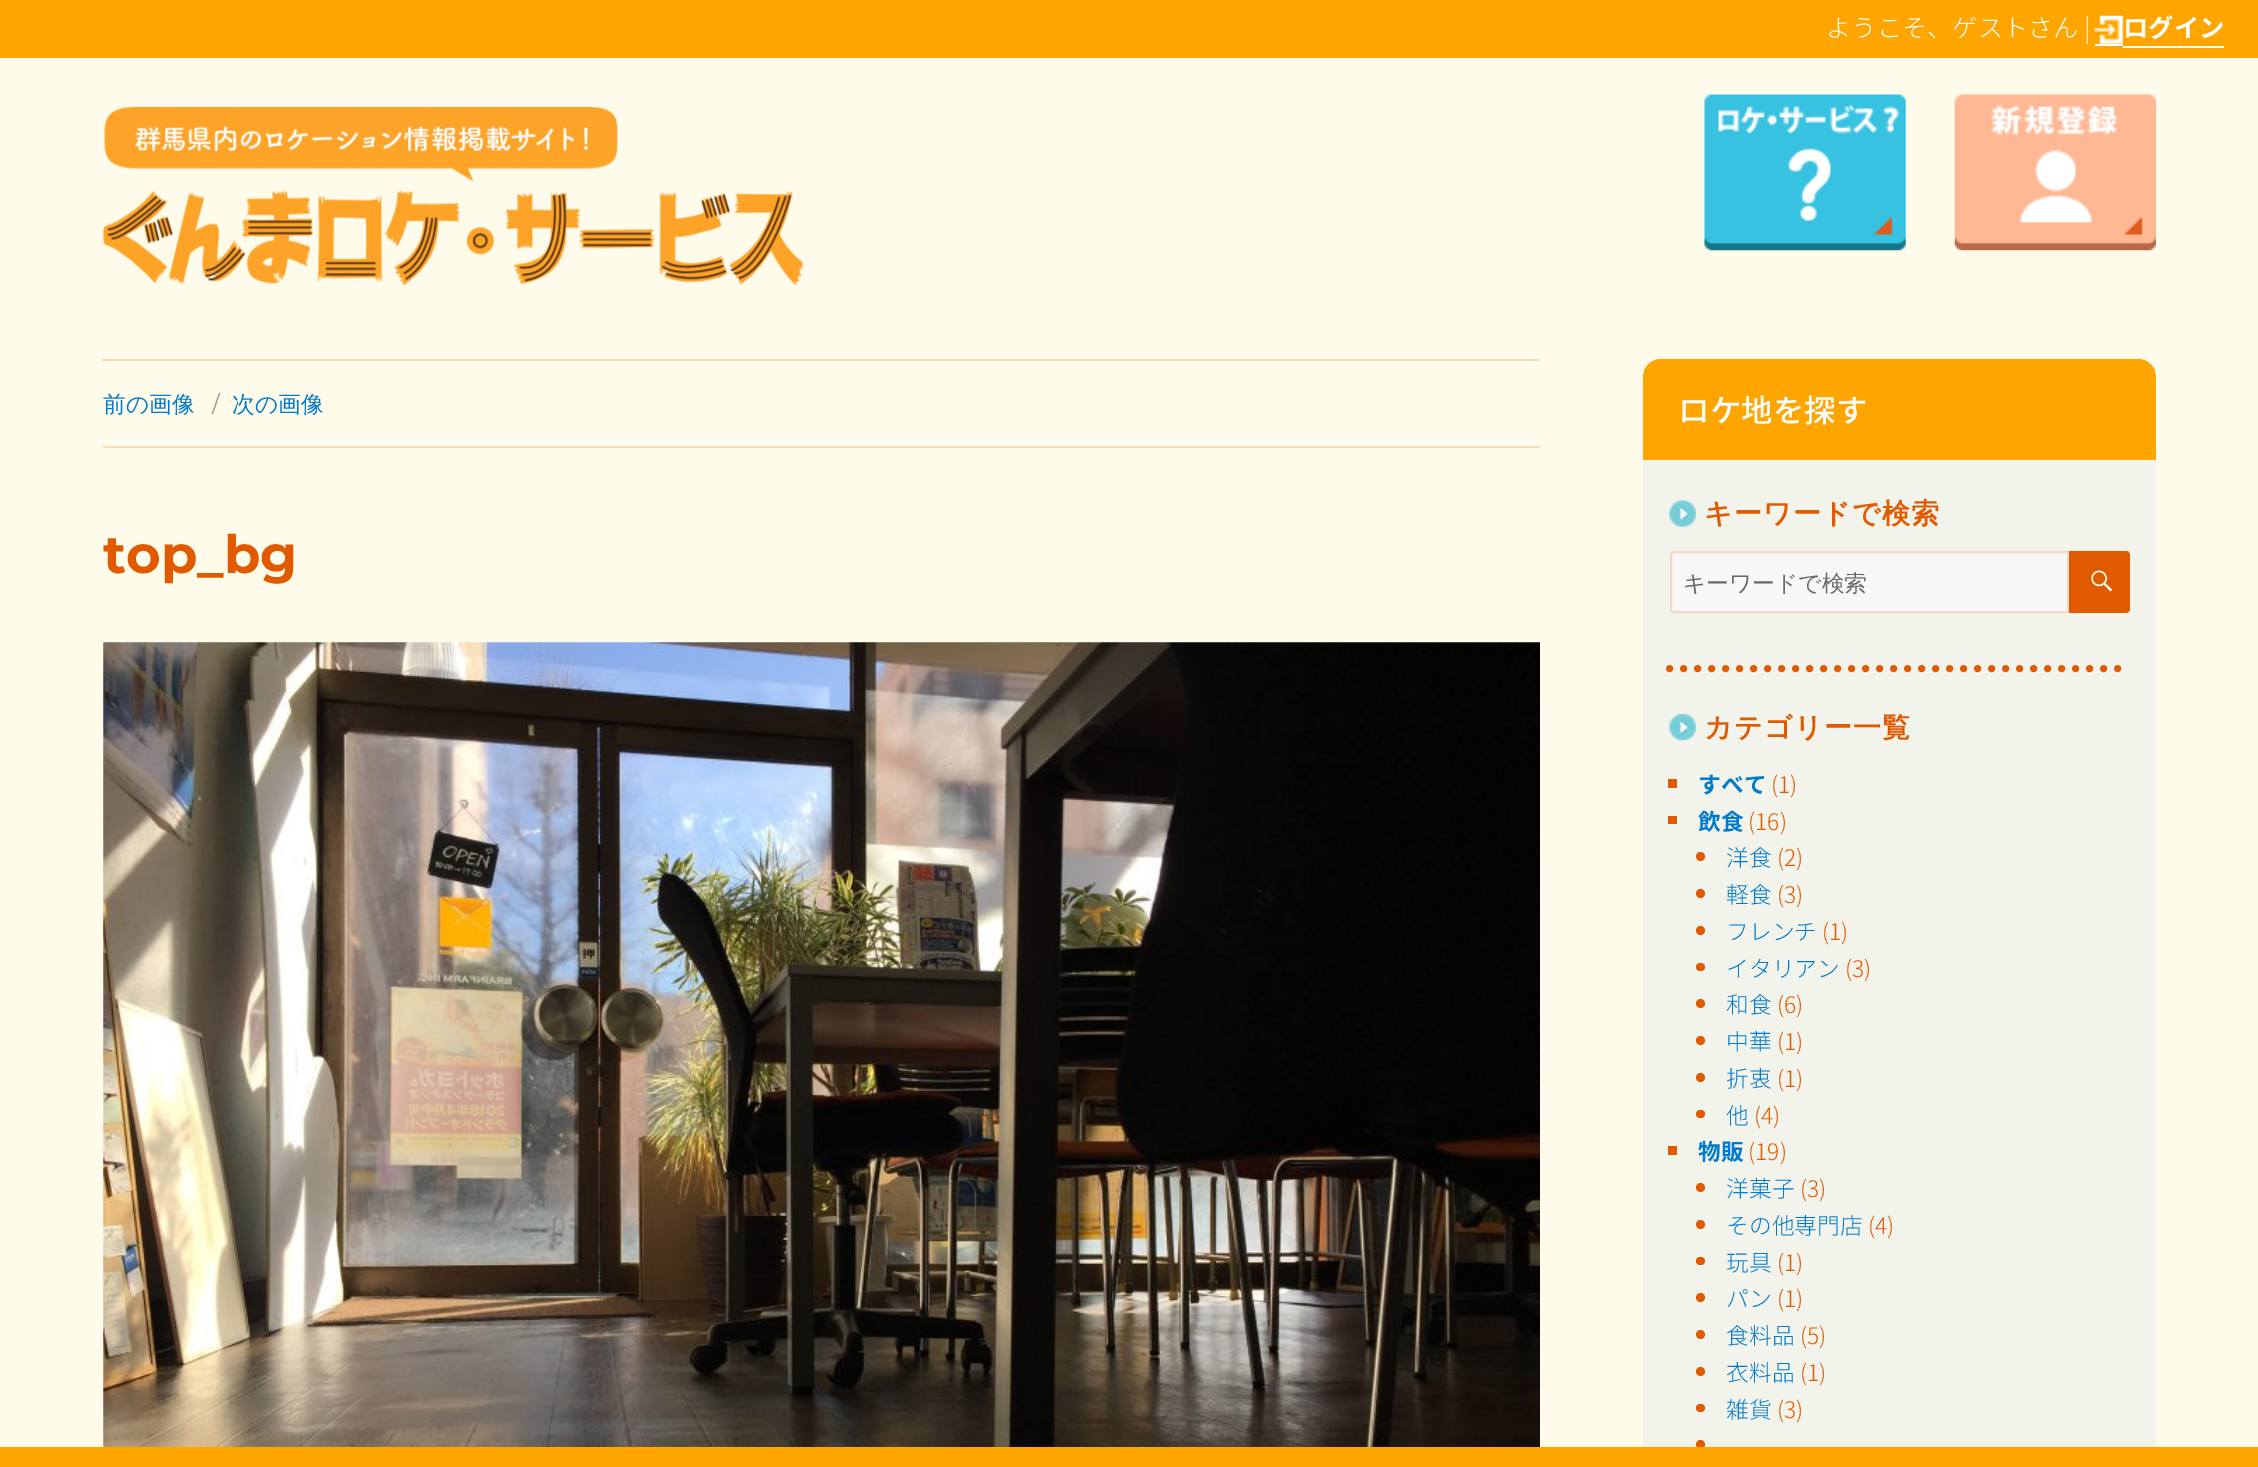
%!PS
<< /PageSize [2258 1467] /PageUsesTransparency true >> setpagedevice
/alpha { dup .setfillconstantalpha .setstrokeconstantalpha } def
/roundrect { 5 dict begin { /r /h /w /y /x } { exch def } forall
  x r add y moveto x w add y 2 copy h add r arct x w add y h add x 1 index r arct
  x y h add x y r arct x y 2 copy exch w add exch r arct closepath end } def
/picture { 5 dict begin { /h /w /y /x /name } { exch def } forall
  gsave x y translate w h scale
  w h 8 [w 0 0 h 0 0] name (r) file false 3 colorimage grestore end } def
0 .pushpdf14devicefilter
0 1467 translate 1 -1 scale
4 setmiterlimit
1 0.984 0.918 setrgbcolor
0 0 2258 1467 rectfill
1 0.647 0 setrgbcolor
0 0 2258 58 rectfill
/NotoSansJP-Light [25.25 0 0 -25.25 0 0] selectfont
1 setgray
1826 37 moveto (ようこそ、ゲストさん |) show
(img1.rgb) 2094 15 30 29 picture
/NotoSansJP-Bold [25.25 0 0 -25.25 0 0] selectfont
2123 37 moveto (ログイン) show
2095 44 28 2 rectfill
2123 46 101 2 rectfill
(img2.rgb) 103 106 701 180 picture
(img3.rgb) 1704 94 202 157 picture
(img4.rgb) 1954 94 202 157 picture
0.976 0.859 0.733 setrgbcolor
103 359 1437 2 rectfill
103 446 1437 2 rectfill
/WenQuanYiZenHei-Medium [22.75 0 0 -22.75 0 0] selectfont
0 0.478 0.8 setrgbcolor
103 412 moveto (前の画像) show
/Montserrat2-Thin [22.75 0 0 -22.75 0 0] selectfont
0.584 0.58 0.561 setrgbcolor
212 412 moveto (/) show
/WenQuanYiZenHei-Medium [22.75 0 0 -22.75 0 0] selectfont
0 0.478 0.8 setrgbcolor
232 412 moveto (次の画像) show
/Montserrat-Thin [53 0 0 -53 0 0] selectfont
0.886 0.353 0 setrgbcolor
103 573 moveto (top_bg) show
(img5.rgb) 103 642 1437 805 picture
1 0.647 0 setrgbcolor
newpath 1661 359 moveto 2138 359 lineto 2148 359 2156 367 2156 377 curveto 2156 460 lineto 1643 460 lineto 1643 377 lineto 1643 367 1651 359 1661 359 curveto closepath fill
/NotoSansJP-Medium [31.5 0 0 -31.5 0 0] selectfont
1 setgray
1678 422 moveto (ロケ地を探す) show
0.949 0.953 0.922 setrgbcolor
1643 460 513 987 rectfill
(img6.rgb) 1669 500 27 27 picture
/WenQuanYiZenHei-Bold [28 0 0 -28 0 0] selectfont
0.886 0.353 0 setrgbcolor
1704 523 moveto 1.25 0 (キーワードで検索) ashow
0.969 setgray
newpath 1674 551 moveto 2069 551 lineto 2069 613 lineto 1674 613 lineto 1672 613 1670 611 1670 609 curveto 1670 555 lineto 1670 553 1672 551 1674 551 curveto closepath fill
0.2 alpha
0.886 0.353 0 setrgbcolor
2 setlinewidth
newpath 1674 552 moveto 2068 552 lineto 2068 612 lineto 1674 612 lineto 1672.5 612 1671 610.5 1671 609 curveto 1671 555 lineto 1671 553.5 1672.5 552 1674 552 curveto closepath stroke
/WenQuanYiZenHei-Medium [22.75 0 0 -22.75 0 0] selectfont
1 alpha
0.408 setgray
1683 591 moveto (キーワードで検索) show
0.886 0.353 0 setrgbcolor
newpath 2069 551 moveto 2126 551 lineto 2128 551 2130 553 2130 555 curveto 2130 609 lineto 2130 611 2128 613 2126 613 curveto 2069 613 lineto closepath fill
(img7.rgb) 2091 570 22 22 picture
7 setlinewidth
1 setlinecap
[0 14] 0 setdash
newpath 1669.5 668.5 moveto 2130 668.5 lineto stroke
(img8.rgb) 1669 714 27 27 picture
/WenQuanYiZenHei-Bold [28 0 0 -28 0 0] selectfont
1704 737 moveto 1.25 0 (カテゴリー一覧) ashow
1668 779 9 9 rectfill
/NotoSansJP-Bold [22.75 0 0 -22.75 0 0] selectfont
0 0.478 0.8 setrgbcolor
1698 793 moveto (すべて) show
/NotoSansJP-Light [22.75 0 0 -22.75 0 0] selectfont
0.886 0.353 0 setrgbcolor
1771 793 moveto (\(1\)) show
1668 816 9 8 rectfill
/NotoSansJP-Bold [22.75 0 0 -22.75 0 0] selectfont
0 0.478 0.8 setrgbcolor
1698 830 moveto (飲食) show
/NotoSansJP-Light [22.75 0 0 -22.75 0 0] selectfont
0.886 0.353 0 setrgbcolor
1748 830 moveto (\(16\)) show
newpath 1700.5 856.5 4.5 0 360 arc closepath fill
0 0.478 0.8 setrgbcolor
1726 866 moveto (洋食) show
0.886 0.353 0 setrgbcolor
1777 866 moveto (\(2\)) show
newpath 1700.5 893.5 4.5 0 360 arc closepath fill
0 0.478 0.8 setrgbcolor
1726 903 moveto (軽食) show
0.886 0.353 0 setrgbcolor
1777 903 moveto (\(3\)) show
newpath 1700.5 930.5 4.5 0 360 arc closepath fill
0 0.478 0.8 setrgbcolor
1726 940 moveto (フレンチ) show
0.886 0.353 0 setrgbcolor
1822 940 moveto (\(1\)) show
1696 963 9 8 4 roundrect fill
0 0.478 0.8 setrgbcolor
1726 977 moveto (イタリアン) show
0.886 0.353 0 setrgbcolor
1845 977 moveto (\(3\)) show
newpath 1700.5 1003.5 4.5 0 360 arc closepath fill
0 0.478 0.8 setrgbcolor
1726 1013 moveto (和食) show
0.886 0.353 0 setrgbcolor
1777 1013 moveto (\(6\)) show
newpath 1700.5 1040.5 4.5 0 360 arc closepath fill
0 0.478 0.8 setrgbcolor
1726 1050 moveto (中華) show
0.886 0.353 0 setrgbcolor
1777 1050 moveto (\(1\)) show
newpath 1700.5 1077.5 4.5 0 360 arc closepath fill
0 0.478 0.8 setrgbcolor
1726 1087 moveto (折衷) show
0.886 0.353 0 setrgbcolor
1777 1087 moveto (\(1\)) show
1696 1110 9 8 4 roundrect fill
0 0.478 0.8 setrgbcolor
1726 1124 moveto (他) show
0.886 0.353 0 setrgbcolor
1754 1124 moveto (\(4\)) show
1668 1146 9 9 rectfill
/NotoSansJP-Bold [22.75 0 0 -22.75 0 0] selectfont
0 0.478 0.8 setrgbcolor
1698 1160 moveto (物販) show
/NotoSansJP-Light [22.75 0 0 -22.75 0 0] selectfont
0.886 0.353 0 setrgbcolor
1748 1160 moveto (\(19\)) show
newpath 1700.5 1187.5 4.5 0 360 arc closepath fill
0 0.478 0.8 setrgbcolor
1726 1197 moveto (洋菓子) show
0.886 0.353 0 setrgbcolor
1800 1197 moveto (\(3\)) show
newpath 1700.5 1224.5 4.5 0 360 arc closepath fill
0 0.478 0.8 setrgbcolor
1726 1234 moveto (その他専門店) show
0.886 0.353 0 setrgbcolor
1868 1234 moveto (\(4\)) show
1696 1257 9 8 4 roundrect fill
0 0.478 0.8 setrgbcolor
1726 1271 moveto (玩具) show
0.886 0.353 0 setrgbcolor
1777 1271 moveto (\(1\)) show
newpath 1700.5 1297.5 4.5 0 360 arc closepath fill
0 0.478 0.8 setrgbcolor
1726 1307 moveto (パン) show
0.886 0.353 0 setrgbcolor
1777 1307 moveto (\(1\)) show
newpath 1700.5 1334.5 4.5 0 360 arc closepath fill
0 0.478 0.8 setrgbcolor
1726 1344 moveto (食料品) show
0.886 0.353 0 setrgbcolor
1800 1344 moveto (\(5\)) show
newpath 1700.5 1371.5 4.5 0 360 arc closepath fill
0 0.478 0.8 setrgbcolor
1726 1381 moveto (衣料品) show
0.886 0.353 0 setrgbcolor
1800 1381 moveto (\(1\)) show
1696 1404 9 8 4 roundrect fill
0 0.478 0.8 setrgbcolor
1726 1418 moveto (雑貨) show
0.886 0.353 0 setrgbcolor
1777 1418 moveto (\(3\)) show
newpath 1700.5 1444.5 4.5 0 360 arc closepath fill
1 0.647 0 setrgbcolor
0 1447 2258 20 rectfill
.poppdf14devicefilter showpage
